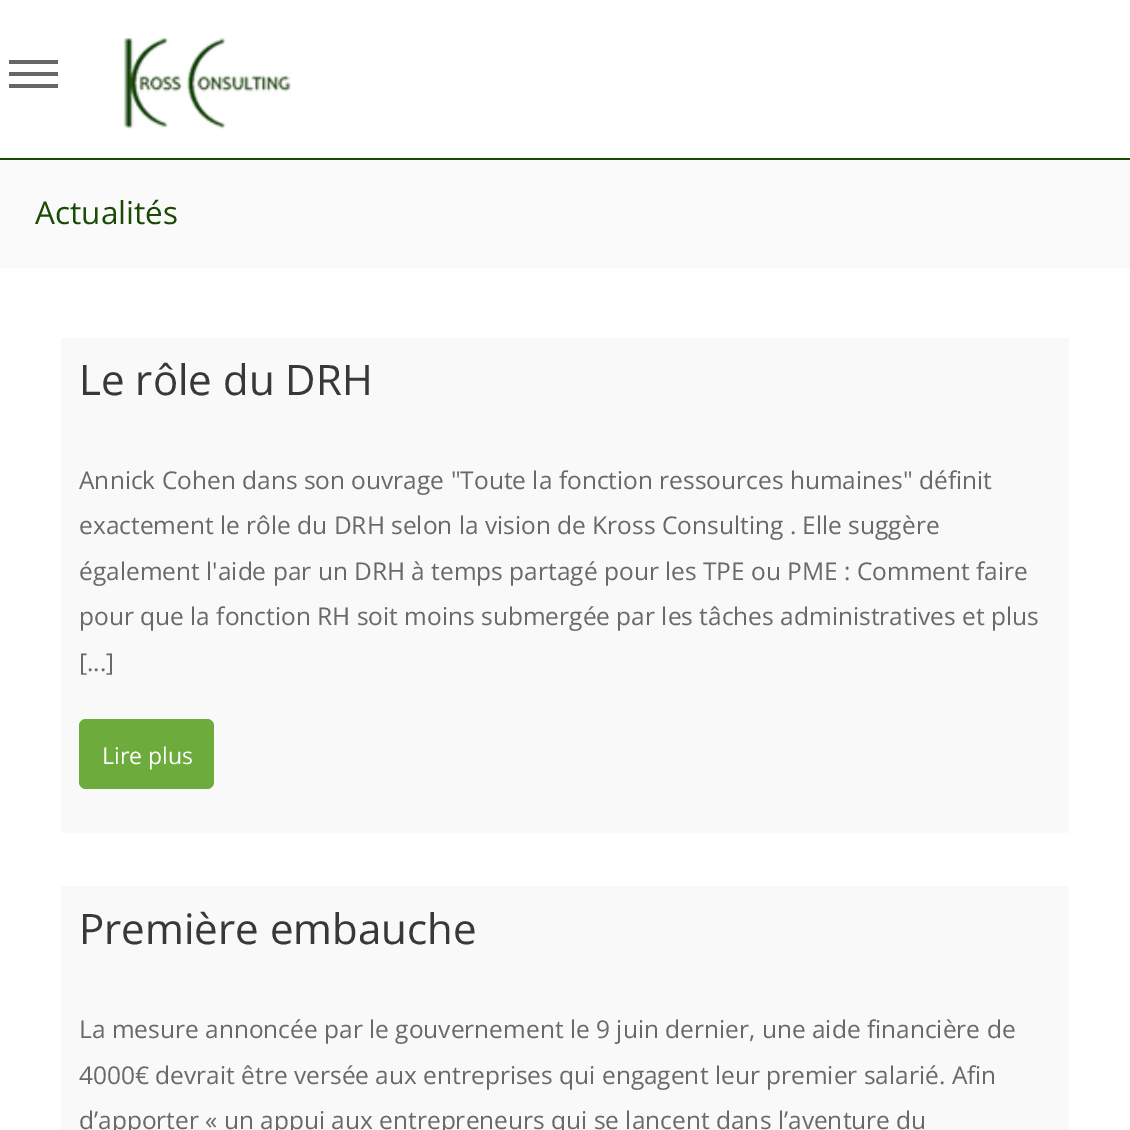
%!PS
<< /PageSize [1130 1130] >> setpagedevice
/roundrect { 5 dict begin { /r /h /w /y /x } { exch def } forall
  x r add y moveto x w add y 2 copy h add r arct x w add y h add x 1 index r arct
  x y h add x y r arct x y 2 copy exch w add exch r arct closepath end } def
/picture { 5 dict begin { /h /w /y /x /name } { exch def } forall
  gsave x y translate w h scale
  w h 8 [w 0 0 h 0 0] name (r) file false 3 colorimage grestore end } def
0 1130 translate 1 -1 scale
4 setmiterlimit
1 setgray
0 0 1130 1130 rectfill
0.098 0.294 0.016 setrgbcolor
0 158 1130 2 rectfill
0.4 setgray
9 60 49 4 rectfill
9 72 49 4 rectfill
9 84 49 4 rectfill
(img1.rgb) 123 38 168 91 picture
0.98 setgray
0 160 1130 108 rectfill
/OpenSans-Regular [31.5 0 0 -31.5 0 0] selectfont
0.098 0.294 0.016 setrgbcolor
35 224 moveto (Actualités) show
0.976 setgray
61 338 1008 495 rectfill
/OpenSans-Regular [42 0 0 -42 0 0] selectfont
0.224 0.22 0.212 setrgbcolor
79 395 moveto (Le rôle du DRH) show
/OpenSans-Regular [24.5 0 0 -24.5 0 0] selectfont
0.412 setgray
79 489 moveto (Annick Cohen dans son ouvrage "Toute la fonction ressources humaines" définit) show
79 534 moveto (exactement le rôle du DRH selon la vision de Kross Consulting . Elle suggère) show
79 580 moveto (également l'aide par un DRH à temps partagé pour les TPE ou PME : Comment faire) show
79 625 moveto (pour que la fonction RH soit moins submergée par les tâches administratives et plus) show
79 671 moveto ([...]) show
0.427 0.671 0.235 setrgbcolor
79 719 135 70 7 roundrect fill
/OpenSans-Regular [23 0 0 -23 0 0] selectfont
1 setgray
102 764 moveto (Lire plus) show
0.976 setgray
61 886 1008 244 rectfill
/OpenSans-Regular [42 0 0 -42 0 0] selectfont
0.224 0.22 0.212 setrgbcolor
79 944 moveto (Première embauche) show
/OpenSans-Regular [24.5 0 0 -24.5 0 0] selectfont
0.412 setgray
79 1038 moveto (La mesure annoncée par le gouvernement le 9 juin dernier, une aide financière de) show
79 1084 moveto (4000€ devrait être versée aux entreprises qui engagent leur premier salarié. Afin) show
79 1129 moveto (d’apporter « un appui aux entrepreneurs qui se lancent dans l’aventure du) show
showpage
